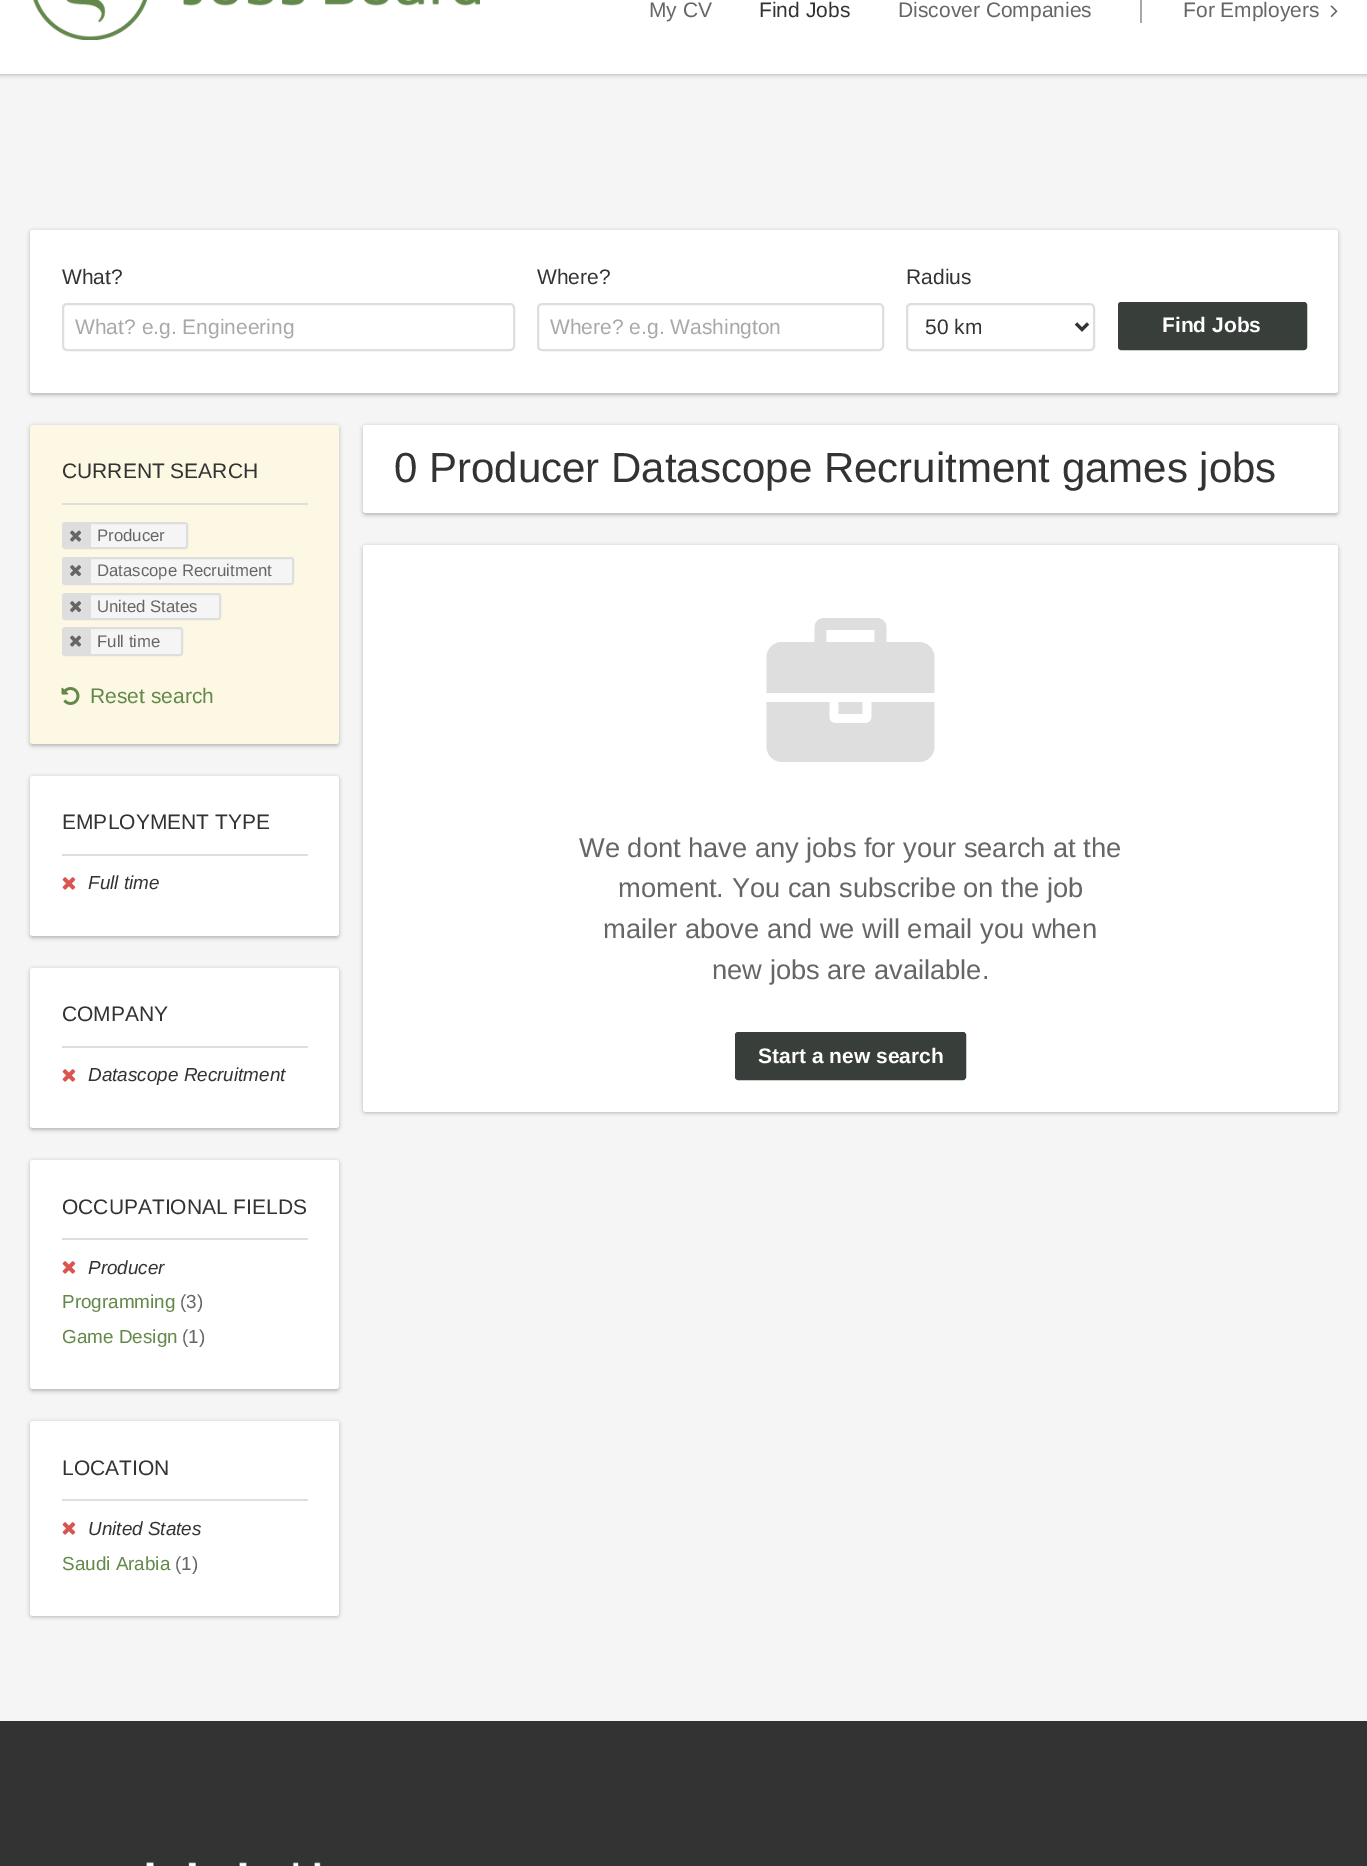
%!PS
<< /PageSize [1367 1866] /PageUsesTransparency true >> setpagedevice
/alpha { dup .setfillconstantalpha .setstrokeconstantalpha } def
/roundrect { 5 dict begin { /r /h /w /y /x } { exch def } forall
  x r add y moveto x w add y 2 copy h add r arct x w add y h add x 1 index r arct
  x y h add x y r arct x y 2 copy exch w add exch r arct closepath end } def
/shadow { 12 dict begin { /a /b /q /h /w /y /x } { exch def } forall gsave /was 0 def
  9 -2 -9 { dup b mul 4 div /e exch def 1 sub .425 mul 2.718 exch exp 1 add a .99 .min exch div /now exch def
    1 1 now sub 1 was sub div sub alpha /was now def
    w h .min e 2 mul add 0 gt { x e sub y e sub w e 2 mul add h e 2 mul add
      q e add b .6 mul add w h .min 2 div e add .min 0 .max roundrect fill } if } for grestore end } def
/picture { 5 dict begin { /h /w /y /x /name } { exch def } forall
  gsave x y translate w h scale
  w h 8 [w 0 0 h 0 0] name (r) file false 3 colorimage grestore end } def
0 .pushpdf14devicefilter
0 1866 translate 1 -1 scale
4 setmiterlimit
0.961 setgray
0 0 1367 1866 rectfill
0 setgray
0 -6 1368 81 0 2 0.25 shadow
1 setgray
0 0 1367 74 rectfill
(img1.rgb) 33 0 447 40 picture
/LiberationSans-Regular [21 0 0 -21 0 0] selectfont
0.4 setgray
649 17 moveto (My CV) show
0.2 setgray
759 17 moveto (Find Jobs) show
0.4 setgray
898 17 moveto (Discover Companies) show
0.659 setgray
1140 0 2 23 rectfill
0.4 setgray
1183 17 moveto (For Employers) show
(img2.rgb) 1330 5 8 12 picture
0 setgray
30 231 1308 164 3 2 0.25 shadow
1 setgray
30 230 1308 163 3 roundrect fill
0.2 setgray
62 284 moveto (What?) show
0.871 setgray
2 setlinewidth
63 304 451 46 4 roundrect stroke
0.659 setgray
75 334 moveto (What? e.g. Engineering) show
0.2 setgray
537 284 moveto (Where?) show
0.871 setgray
538 304 345 46 4 roundrect stroke
0.659 setgray
550 334 moveto (Where? e.g. Washington) show
0.2 setgray
906 284 moveto (Radius) show
0.871 setgray
907 304 187 46 4 roundrect stroke
0.2 setgray
3 setlinewidth
newpath 1076 323.5 moveto 1082 329.5 lineto 1088 323.5 lineto stroke
925 334 moveto (50 km) show
0.22 0.243 0.227 setrgbcolor
1119 303 187 46 2 roundrect gsave fill grestore
2 setlinewidth
stroke
/LiberationSans-Bold [21 0 0 -21 0 0] selectfont
1 setgray
1162 332 moveto (Find Jobs) show
0 setgray
30 426 309 320 3 2 0.25 shadow
0.988 0.973 0.89 setrgbcolor
30 425 309 319 3 roundrect fill
0.871 setgray
62 503 246 2 rectfill
/LiberationSans-Regular [21 0 0 -21 0 0] selectfont
0.2 setgray
62 478 moveto (CURRENT SEARCH) show
0.961 setgray
63 523 124 25 2 roundrect gsave fill grestore
0.871 setgray
stroke
64 524 25 23 rectfill
89 524 2 24 rectfill
(img3.rgb) 70 530 12 12 picture
/LiberationSans-Regular [16.75 0 0 -16.75 0 0] selectfont
0.4 setgray
97 541 moveto (Producer) show
0.961 setgray
63 558 230 26 2 roundrect gsave fill grestore
0.871 setgray
stroke
64 559 25 24 rectfill
89 558 2 26 rectfill
(img4.rgb) 70 565 12 12 picture
0.4 setgray
97 576 moveto (Datascope Recruitment) show
0.961 setgray
63 594 157 25 2 roundrect gsave fill grestore
0.871 setgray
stroke
64 595 25 23 rectfill
89 594 2 24 rectfill
(img4.rgb) 70 601 12 12 picture
0.4 setgray
97 612 moveto (United States) show
0.961 setgray
63 628 119 27 2 roundrect gsave fill grestore
0.871 setgray
stroke
64 629 27 25 rectfill
(img3.rgb) 70 635 12 12 picture
0.4 setgray
97 647 moveto (Full time) show
(img5.rgb) 61 687 19 18 picture
/LiberationSans-Regular [21 0 0 -21 0 0] selectfont
0.388 0.537 0.29 setrgbcolor
90 703 moveto (Reset search) show
0 setgray
30 777 309 161 3 2 0.25 shadow
1 setgray
30 776 309 160 3 roundrect fill
0.871 setgray
62 854 246 2 rectfill
0.2 setgray
62 829 moveto (EMPLOYMENT TYPE) show
(img6.rgb) 62 877 14 13 picture
/LiberationSans-Italic [18.9 0 0 -18.9 0 0] selectfont
88 889 moveto (Full time) show
0 setgray
30 969 309 161 3 2 0.25 shadow
1 setgray
30 968 309 160 3 roundrect fill
0.871 setgray
62 1046 246 2 rectfill
/LiberationSans-Regular [21 0 0 -21 0 0] selectfont
0.2 setgray
62 1021 moveto (COMPANY) show
(img6.rgb) 62 1069 14 13 picture
/LiberationSans-Italic [18.9 0 0 -18.9 0 0] selectfont
88 1081 moveto (Datascope Recruitment) show
0 setgray
30 1161 309 230 3 2 0.25 shadow
1 setgray
30 1160 309 229 3 roundrect fill
0.871 setgray
62 1238 246 2 rectfill
/LiberationSans-Regular [21 0 0 -21 0 0] selectfont
0.2 setgray
62 1214 moveto (OCCUPATIONAL FIELDS) show
(img6.rgb) 62 1261 14 13 picture
/LiberationSans-Italic [18.9 0 0 -18.9 0 0] selectfont
88 1274 moveto (Producer) show
/LiberationSans-Regular [18.9 0 0 -18.9 0 0] selectfont
0.388 0.537 0.29 setrgbcolor
62 1308 moveto (Programming) show
0.4 setgray
180 1308 moveto (\(3\)) show
0.388 0.537 0.29 setrgbcolor
62 1343 moveto (Game Design) show
0.4 setgray
182 1343 moveto (\(1\)) show
0 setgray
30 1422 309 195 3 2 0.25 shadow
1 setgray
30 1421 309 195 3 roundrect fill
0.871 setgray
62 1499 246 2 rectfill
/LiberationSans-Regular [21 0 0 -21 0 0] selectfont
0.2 setgray
62 1475 moveto (LOCATION) show
(img6.rgb) 62 1522 14 13 picture
/LiberationSans-Italic [18.9 0 0 -18.9 0 0] selectfont
88 1535 moveto (United States) show
/LiberationSans-Regular [18.9 0 0 -18.9 0 0] selectfont
0.388 0.537 0.29 setrgbcolor
62 1570 moveto (Saudi Arabia) show
0.4 setgray
175 1570 moveto (\(1\)) show
0 setgray
363 426 975 89 3 2 0.25 shadow
1 setgray
363 425 975 88 3 roundrect fill
/LiberationSans-Regular [42 0 0 -42 0 0] selectfont
0.2 setgray
394 482 moveto (0 Producer Datascope Recruitment games jobs) show
0 setgray
363 546 975 567 3 2 0.25 shadow
1 setgray
363 545 975 567 3 roundrect fill
(img7.rgb) 766 618 169 144 picture
/LiberationSans-Regular [27.25 0 0 -27.25 0 0] selectfont
0.4 setgray
579 857 moveto (We dont have any jobs for your search at the) show
618 897 moveto (moment. You can subscribe on the job) show
603 938 moveto (mailer above and we will email you when) show
712 979 moveto (new jobs are available.) show
0.22 0.243 0.227 setrgbcolor
736 1033 229 46 2 roundrect gsave fill grestore
stroke
/LiberationSans-Bold [21 0 0 -21 0 0] selectfont
1 setgray
758 1063 moveto (Start a new search) show
0.2 setgray
0 1721 1367 145 rectfill
(img8.rgb) 146 1862 175 4 picture
.poppdf14devicefilter showpage
